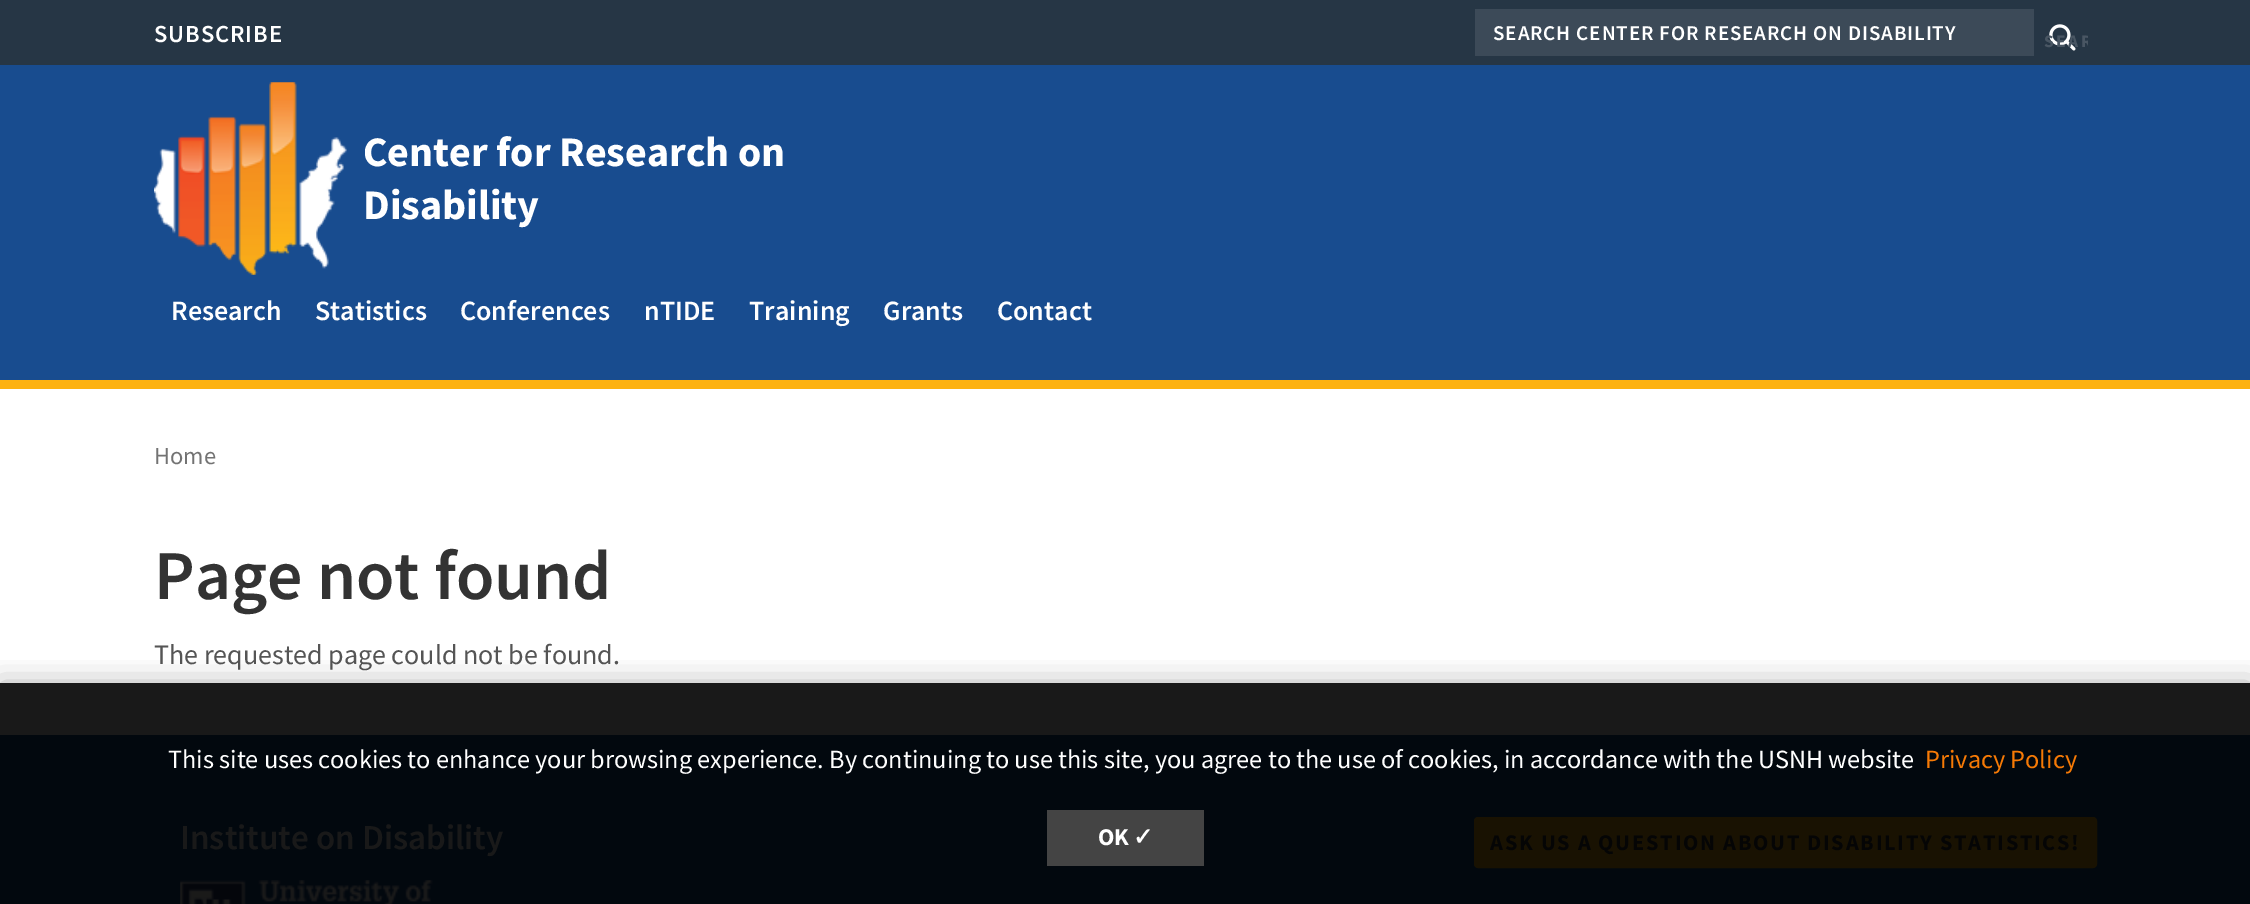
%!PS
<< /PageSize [2250 904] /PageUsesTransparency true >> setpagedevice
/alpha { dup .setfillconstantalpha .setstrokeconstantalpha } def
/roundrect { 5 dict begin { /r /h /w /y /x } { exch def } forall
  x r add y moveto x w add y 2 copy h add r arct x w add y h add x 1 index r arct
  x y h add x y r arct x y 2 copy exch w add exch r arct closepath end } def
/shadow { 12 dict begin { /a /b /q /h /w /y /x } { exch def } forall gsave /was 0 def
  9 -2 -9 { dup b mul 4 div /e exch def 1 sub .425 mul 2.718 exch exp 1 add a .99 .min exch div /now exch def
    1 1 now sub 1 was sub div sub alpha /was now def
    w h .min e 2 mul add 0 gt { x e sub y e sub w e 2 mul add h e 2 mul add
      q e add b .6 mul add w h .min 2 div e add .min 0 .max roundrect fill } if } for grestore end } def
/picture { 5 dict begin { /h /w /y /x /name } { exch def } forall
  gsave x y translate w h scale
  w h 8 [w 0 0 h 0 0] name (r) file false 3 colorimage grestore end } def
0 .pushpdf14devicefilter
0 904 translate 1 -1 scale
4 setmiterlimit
1 setgray
0 0 2250 904 rectfill
0.098 setgray
0 683 2250 52 rectfill
0.094 0.298 0.561 setrgbcolor
0 65 2250 315 rectfill
0.992 0.698 0.071 setrgbcolor
0 380 2250 9 rectfill
0.149 0.212 0.271 setrgbcolor
0 0 2250 65 rectfill
/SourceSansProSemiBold-SemiBold [24.5 0 0 -24.5 0 0] selectfont
1 setgray
154 42 moveto 0.9 0 (SUBSCRIBE) ashow
0.235 0.29 0.345 setrgbcolor
1475 9 559 47 rectfill
/SourceSansProSemiBold-SemiBold [21 0 0 -21 0 0] selectfont
1 setgray
1493 40 moveto 0.9 0 (SEARCH CENTER FOR RESEARCH ON DISABILITY) ashow
(img1.rgb) 2049 24 27 27 picture
gsave
2044 16 44 52 7 roundrect clip newpath
/SourceSansPro-Bold [17.5 0 0 -17.5 0 0] selectfont
0.286 0.337 0.388 setrgbcolor
2044 47 moveto 2.5 0 (SEAR) ashow
grestore
(img2.rgb) 154 82 193 193 picture
/SourceSansPro-Bold [42 0 0 -42 0 0] selectfont
363 166 moveto (Center for Research on) show
363 219 moveto (Disability) show
/SourceSansProSemiBold-SemiBold [28 0 0 -28 0 0] selectfont
171 320 moveto (Research) show
315 320 moveto (Statistics) show
460 320 moveto (Conferences) show
644 320 moveto (nTIDE) show
749 320 moveto (Training) show
883 320 moveto (Grants) show
997 320 moveto (Contact) show
/SourceSansPro-Regular [24.5 0 0 -24.5 0 0] selectfont
0.451 setgray
154 464 moveto (Home) show
/SourceSansProSemiBold-SemiBold [70 0 0 -70 0 0] selectfont
0.2 setgray
154 599 moveto (Page not found) show
/SourceSansPro-Regular [28 0 0 -28 0 0] selectfont
0.333 setgray
154 664 moveto (The requested page could not be found.) show
0.008 0.031 0.055 setrgbcolor
0 735 2250 169 rectfill
/SourceSansProSemiBold-SemiBold [35 0 0 -35 0 0] selectfont
0.098 setgray
180 849 moveto (Institute on Disability) show
(img3.rgb) 180 880 253 24 picture
0.098 0.071 0.008 setrgbcolor
1475 818 621 49 3 roundrect gsave fill grestore
2 setlinewidth
stroke
/SourceSansPro-Bold [22.4 0 0 -22.4 0 0] selectfont
0.02 setgray
1490 850 moveto 1.75 0 (ASK US A QUESTION ABOUT DISABILITY STATISTICS!) ashow
gsave
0 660 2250 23 rectclip
0 setgray
0 683 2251 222 0 15 0.3 shadow
grestore
/SourceSansPro-Regular [26.25 0 0 -26.25 0 0] selectfont
1 setgray
168 768 moveto (This site uses cookies to enhance your browsing experience. By continuing to use this site, you agree to the use of cookies, in accordance with the USNH website) show
0.969 0.478 0.02 setrgbcolor
1925 768 moveto (Privacy Policy) show
0.267 setgray
1047 810 157 56 rectfill
/SourceSansPro-Bold [24 0 0 -24 0 0] selectfont
1 setgray
1098 845 moveto (OK) show
/DejaVuSans-Bold [24 0 0 -24 0 0] selectfont
1133 845 moveto (✓) show
.poppdf14devicefilter showpage
